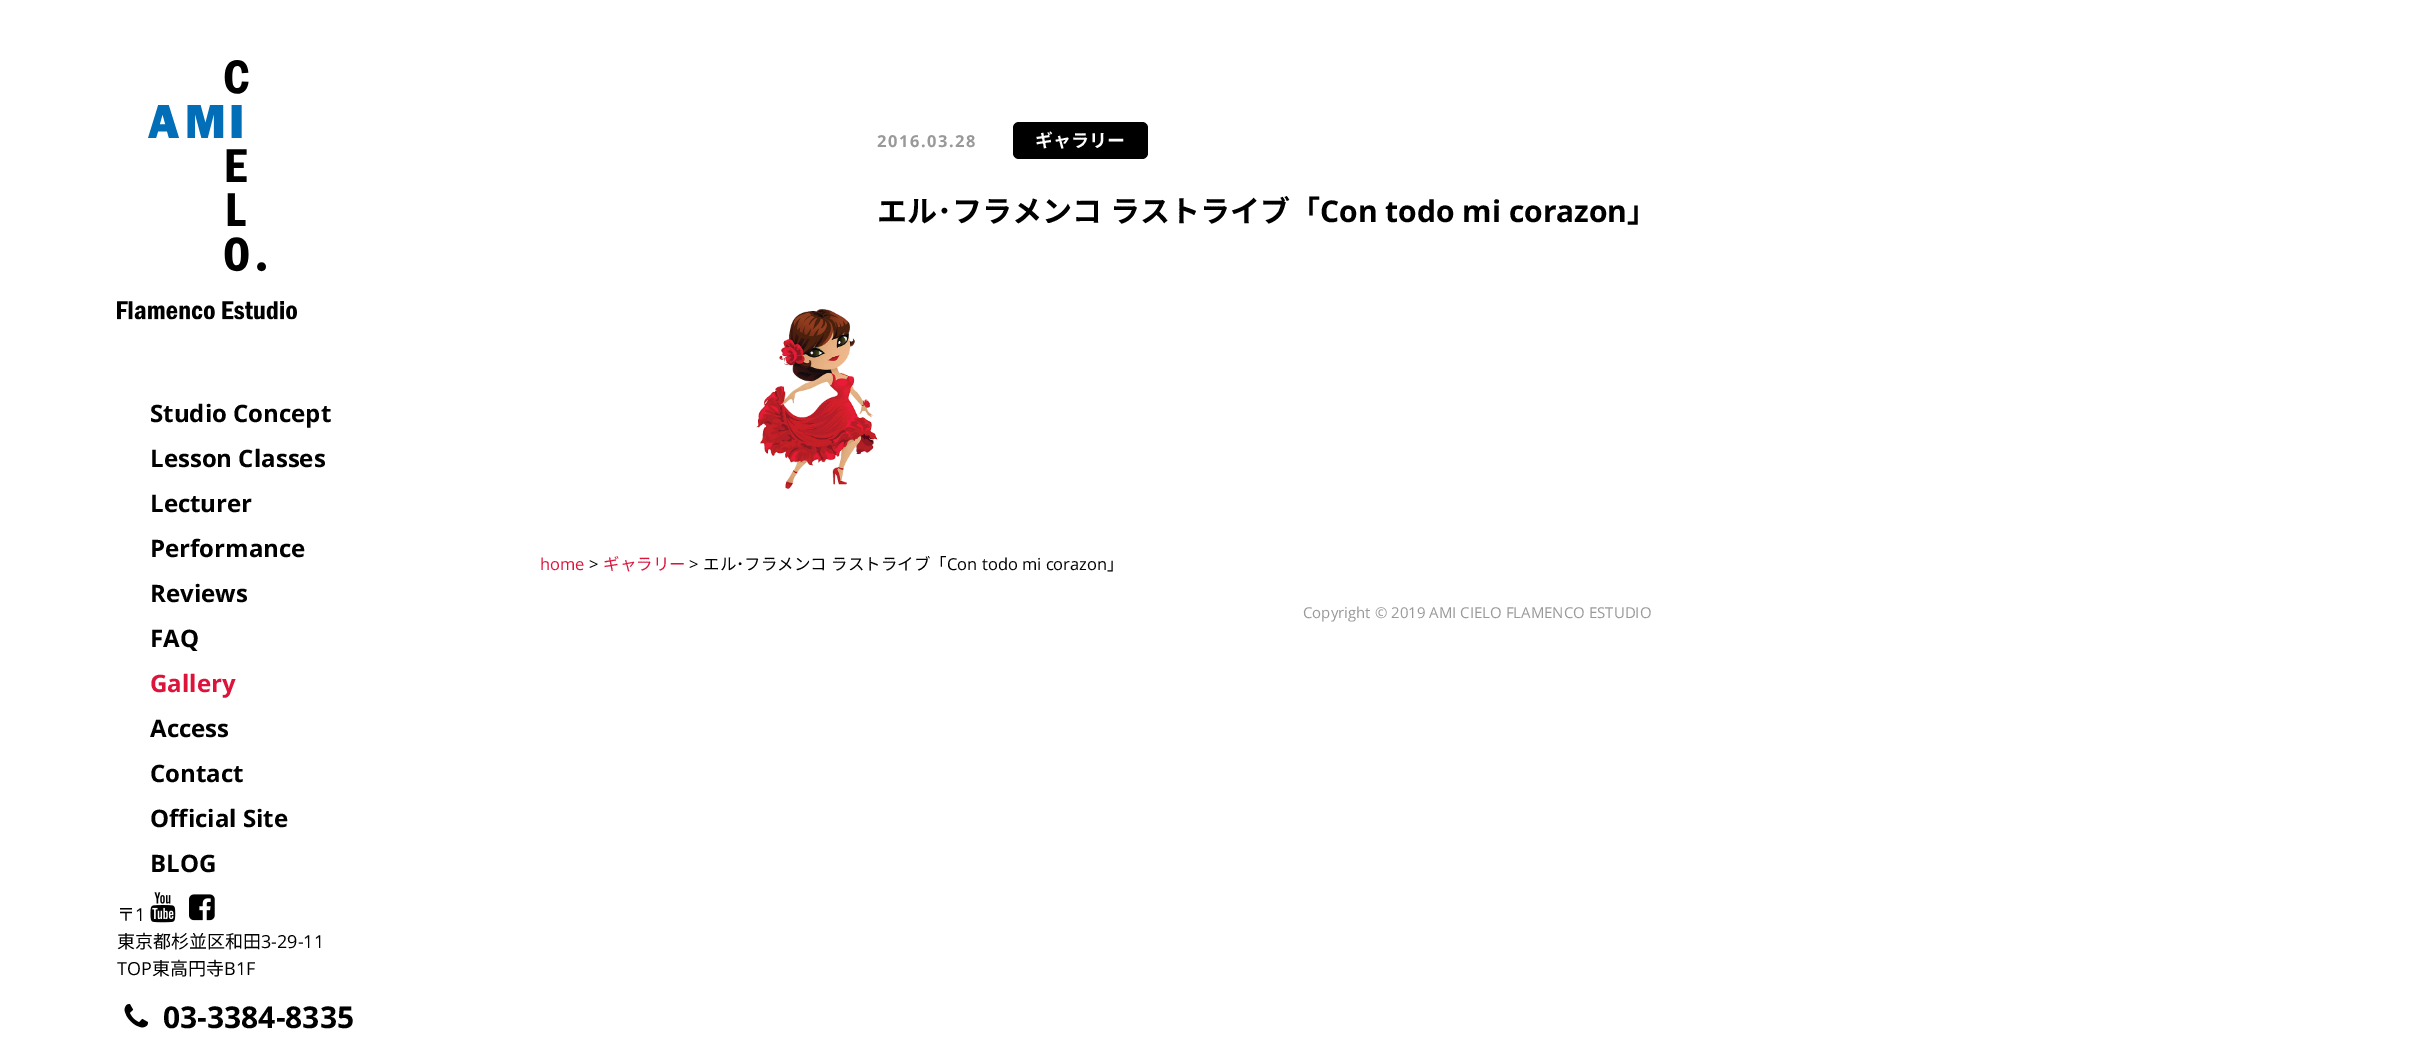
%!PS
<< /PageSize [2413 1061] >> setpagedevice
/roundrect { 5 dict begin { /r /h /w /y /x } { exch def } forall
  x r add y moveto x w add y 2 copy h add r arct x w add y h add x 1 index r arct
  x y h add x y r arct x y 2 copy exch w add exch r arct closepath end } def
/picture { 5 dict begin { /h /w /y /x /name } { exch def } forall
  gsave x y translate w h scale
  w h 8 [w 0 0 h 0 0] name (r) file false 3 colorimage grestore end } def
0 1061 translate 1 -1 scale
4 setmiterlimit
1 setgray
0 0 2413 1061 rectfill
/OpenSans-Bold [16.5 0 0 -16.5 0 0] selectfont
0.6 setgray
877 147 moveto 1.5 0 (2016.03.28) ashow
0 setgray
1013 122 135 37 6 roundrect fill
/NotoSansJP-Bold [18 0 0 -18 0 0] selectfont
1 setgray
1035 147 moveto (ギャラリー) show
/NotoSansJP-Bold [30 0 0 -30 0 0] selectfont
0 setgray
877 222 moveto (エル･フラメンコ) show
1110 222 moveto (ラストライブ「) show
/OpenSans-Bold [30 0 0 -30 0 0] selectfont
1320 222 moveto (Con todo mi corazon) show
/NotoSansJP-Bold [30 0 0 -30 0 0] selectfont
1627 222 moveto (」) show
(img1.rgb) 756 309 122 180 picture
/OpenSans-Regular [16.5 0 0 -16.5 0 0] selectfont
0.863 0.078 0.235 setrgbcolor
540 570 moveto (home) show
0 setgray
589 570 moveto (>) show
/NotoSansJP-Regular [16.5 0 0 -16.5 0 0] selectfont
0.863 0.078 0.235 setrgbcolor
603 570 moveto (ギャラリー) show
/OpenSans-Regular [16.5 0 0 -16.5 0 0] selectfont
0 setgray
689 570 moveto (>) show
/NotoSansJP-Regular [16.5 0 0 -16.5 0 0] selectfont
703 570 moveto (エル･フラメンコ) show
831 570 moveto (ラストライブ「) show
/OpenSans-Regular [16.5 0 0 -16.5 0 0] selectfont
947 570 moveto (Con todo mi corazon) show
/NotoSansJP-Regular [16.5 0 0 -16.5 0 0] selectfont
1107 570 moveto (」) show
(img2.rgb) 117 60 180 260 picture
/OpenSans-Bold [24 0 0 -24 0 0] selectfont
150 422 moveto (Studio Concept) show
150 467 moveto (Lesson Classes) show
150 512 moveto (Lecturer) show
150 557 moveto (Performance) show
150 602 moveto (Reviews) show
150 647 moveto (FAQ) show
0.863 0.078 0.235 setrgbcolor
150 692 moveto (Gallery) show
0 setgray
150 737 moveto (Access) show
150 782 moveto (Contact) show
150 827 moveto (Official Site) show
150 872 moveto (BLOG) show
(img3.rgb) 150 892 26 31 picture
(img4.rgb) 189 894 26 27 picture
/NotoSansJP-Regular [18 0 0 -18 0 0] selectfont
117 921 moveto (〒) show
/OpenSans-Regular [18 0 0 -18 0 0] selectfont
135 921 moveto (1) show
/NotoSansJP-Regular [18 0 0 -18 0 0] selectfont
117 948 moveto (東京都杉並区和田) show
/OpenSans-Regular [18 0 0 -18 0 0] selectfont
261 948 moveto (3-29-11) show
117 975 moveto (TOP) show
/NotoSansJP-Regular [18 0 0 -18 0 0] selectfont
152 975 moveto (東高円寺) show
/OpenSans-Regular [18 0 0 -18 0 0] selectfont
224 975 moveto (B1F) show
(img5.rgb) 124 1003 25 25 picture
/OpenSans-Bold [30 0 0 -30 0 0] selectfont
163 1028 moveto (03-3384-8335) show
/OpenSans-Regular [15 0 0 -15 0 0] selectfont
0.6 setgray
1303 618 moveto (Copyright © 2019 AMI CIELO FLAMENCO ESTUDIO) show
showpage
